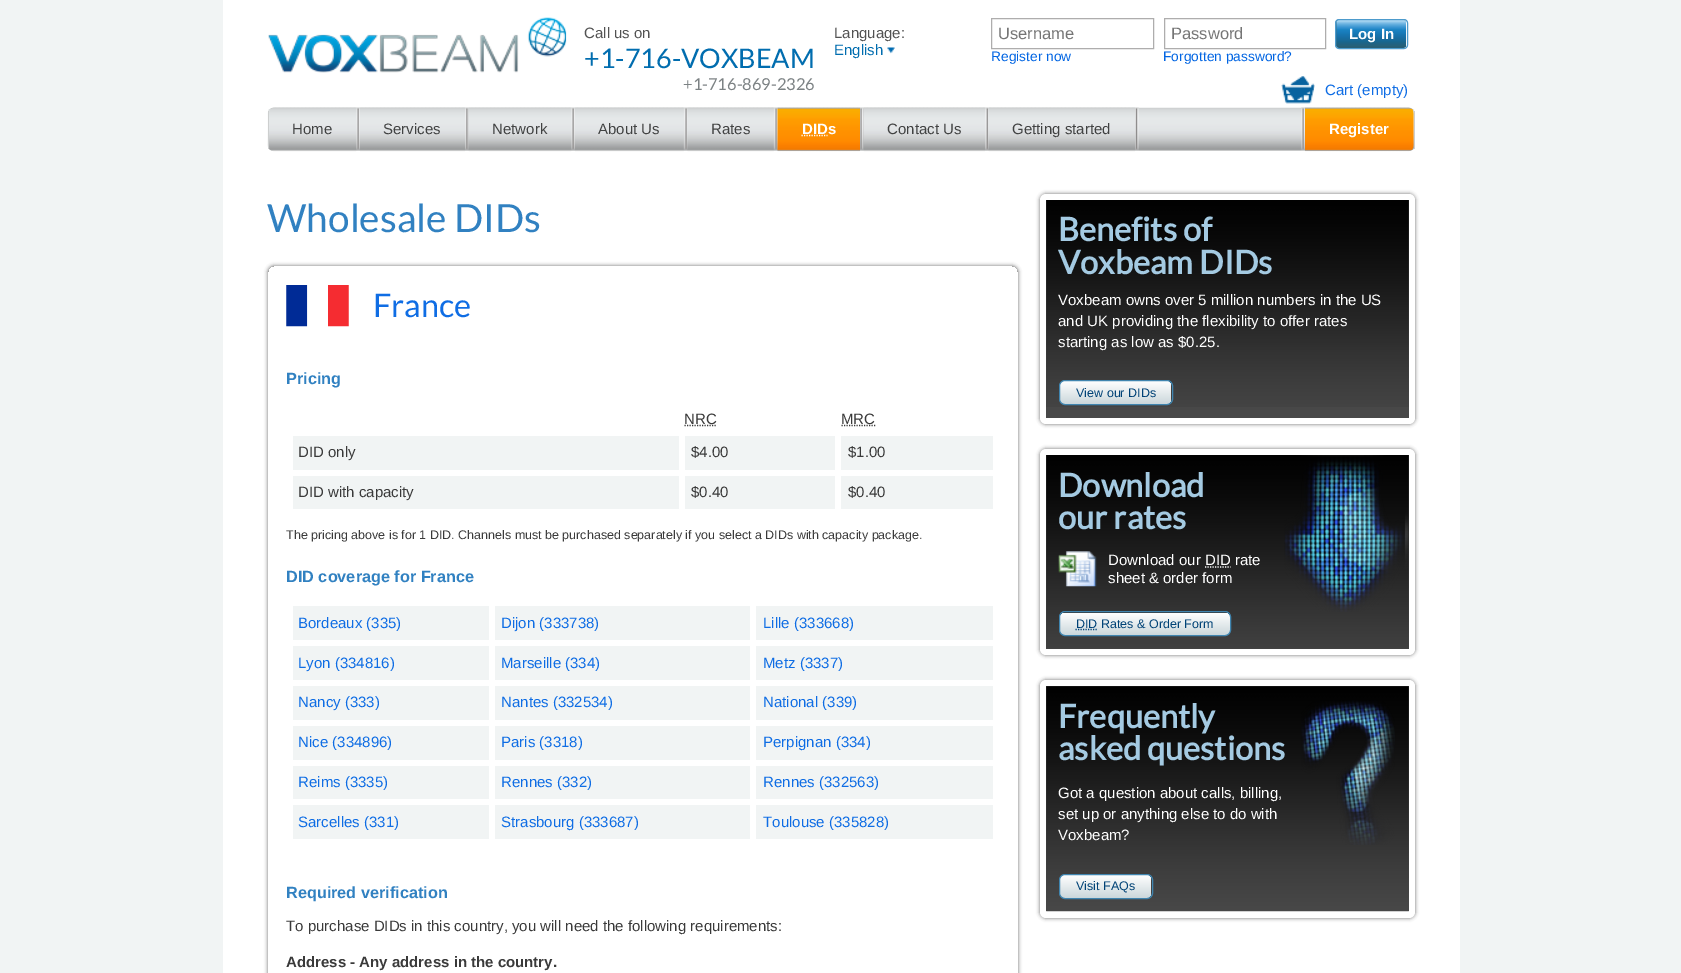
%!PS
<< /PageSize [1681 973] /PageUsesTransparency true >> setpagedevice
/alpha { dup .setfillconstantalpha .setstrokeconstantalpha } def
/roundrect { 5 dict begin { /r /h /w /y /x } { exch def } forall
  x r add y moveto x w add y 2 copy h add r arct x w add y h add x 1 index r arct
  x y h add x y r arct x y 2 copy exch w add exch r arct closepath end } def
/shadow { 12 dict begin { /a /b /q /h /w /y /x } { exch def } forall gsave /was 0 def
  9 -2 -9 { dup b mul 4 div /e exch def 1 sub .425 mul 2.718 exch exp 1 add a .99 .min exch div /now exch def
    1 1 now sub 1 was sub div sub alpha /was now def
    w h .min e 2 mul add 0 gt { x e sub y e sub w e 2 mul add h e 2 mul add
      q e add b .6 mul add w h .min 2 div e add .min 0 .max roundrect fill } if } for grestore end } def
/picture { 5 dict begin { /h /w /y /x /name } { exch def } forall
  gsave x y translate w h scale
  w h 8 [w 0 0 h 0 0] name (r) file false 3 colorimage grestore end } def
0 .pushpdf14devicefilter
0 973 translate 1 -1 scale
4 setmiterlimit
0.945 0.957 0.957 setrgbcolor
0 0 1681 973 rectfill
1 setgray
223 0 1237 973 rectfill
(img1.rgb) 268 17 299 56 picture
/LiberationSans-Regular [15 0 0 -15 0 0] selectfont
0.322 setgray
584 38 moveto (Call us on) show
/Lato-Regular [27 0 0 -27 0 0] selectfont
0.004 0.427 0.686 setrgbcolor
584 68 moveto (+1-716-VOXBEAM) show
/Lato-Regular [16.5 0 0 -16.5 0 0] selectfont
0.486 0.51 0.518 setrgbcolor
683 90 moveto (+1-716-869-2326) show
/LiberationSans-Regular [15 0 0 -15 0 0] selectfont
0.322 setgray
834 38 moveto (Language:) show
0.004 0.427 0.686 setrgbcolor
834 55 moveto (English) show
(img2.rgb) 887 47 8 7 picture
0.682 0.678 0.678 setrgbcolor
991.5 18.5 162 30 rectstroke
/LiberationSans-Regular [16.5 0 0 -16.5 0 0] selectfont
0.459 setgray
998 39 moveto (Username) show
0.682 0.678 0.678 setrgbcolor
1164.5 18.5 161 30 rectstroke
0.459 setgray
1171 39 moveto (Password) show
0.157 0.373 0.455 setrgbcolor
1336 20 70 28 2.5 roundrect fill
(img3.rgb) 1336 20 71 28 picture
0.302 0.608 0.8 setrgbcolor
1335.5 19.5 72 29 3.5 roundrect stroke
/LiberationSans-Bold [15 0 0 -15 0 0] selectfont
1 setgray
1349 39 moveto (Log In) show
/LiberationSans-Regular [13.75 0 0 -13.75 0 0] selectfont
0 0.392 0.886 setrgbcolor
991 61 moveto (Register now) show
1163 61 moveto (Forgotten password?) show
(img4.rgb) 1281 76 34 28 picture
/LiberationSans-Regular [15 0 0 -15 0 0] selectfont
0.059 0.427 0.894 setrgbcolor
1325 95 moveto (Cart \(empty\)) show
(img5.rgb) 267 107 1148 44 picture
0.804 0.812 0.812 setrgbcolor
1414 111 1 38 rectfill
268 111 1 38 rectfill
(img6.rgb) 269 107 91 44 picture
(img7.rgb) 269 107 88 45 picture
0.255 0.259 0.259 setrgbcolor
292 134 moveto (Home) show
(img8.rgb) 360 107 109 44 picture
(img9.rgb) 360 107 105 45 picture
383 134 moveto (Services) show
(img10.rgb) 468 107 107 44 picture
(img11.rgb) 468 107 104 45 picture
492 134 moveto (Network) show
(img12.rgb) 575 107 113 44 picture
(img13.rgb) 575 107 109 45 picture
598 134 moveto (About Us) show
(img14.rgb) 687 107 91 44 picture
(img15.rgb) 687 107 87 45 picture
711 134 moveto (Rates) show
(img16.rgb) 777 107 87 44 picture
(img17.rgb) 777 107 83 45 picture
1 setgray
1.2 setlinewidth
[1.25 1.25] 0 setdash
newpath 801.5 135.5 moveto 827.5 135.5 lineto stroke
/LiberationSans-Bold [15 0 0 -15 0 0] selectfont
802 134 moveto (DIDs) show
(img18.rgb) 863 107 126 44 picture
(img19.rgb) 863 107 122 45 picture
/LiberationSans-Regular [15 0 0 -15 0 0] selectfont
0.255 0.259 0.259 setrgbcolor
887 134 moveto (Contact Us) show
(img20.rgb) 989 107 150 44 picture
(img21.rgb) 988 107 147 45 picture
1012 134 moveto (Getting started) show
(img22.rgb) 1301 107 113 44 picture
(img23.rgb) 1305 107 109 45 picture
/LiberationSans-Bold [15 0 0 -15 0 0] selectfont
1 setgray
1329 134 moveto (Register) show
/Lato-Regular [38.75 0 0 -38.75 0 0] selectfont
0.192 0.506 0.757 setrgbcolor
267 232 moveto (Wholesale DIDs) show
gsave
newpath 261 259 moveto 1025 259 lineto 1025 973 lineto 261 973 lineto closepath 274 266 moveto 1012 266 lineto 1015.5 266 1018 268.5 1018 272 curveto 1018 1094 lineto 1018 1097.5 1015.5 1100 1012 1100 curveto 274 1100 lineto 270.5 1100 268 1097.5 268 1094 curveto 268 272 lineto 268 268.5 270.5 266 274 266 curveto closepath eoclip newpath
0.4 setgray
268 266 750 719 6 2 1 shadow
grestore
(img24.rgb) 286 285 63 42 picture
/Lato-Regular [32.5 0 0 -32.5 0 0] selectfont
0.059 0.427 0.894 setrgbcolor
373 317 moveto (France) show
/LiberationSans-Bold [16.25 0 0 -16.25 0 0] selectfont
0.192 0.506 0.757 setrgbcolor
286 384 moveto (Pricing) show
0.227 setgray
newpath 684.5 425.5 moveto 717 425.5 lineto stroke
/LiberationSans-Regular [15 0 0 -15 0 0] selectfont
684 424 moveto (NRC) show
newpath 841.5 425.5 moveto 875.5 425.5 lineto stroke
841 424 moveto (MRC) show
0.945 0.957 0.957 setrgbcolor
293 436 386 34 rectfill
0.227 setgray
298 457 moveto (DID only) show
0.945 0.957 0.957 setrgbcolor
685 436 150 34 rectfill
0.227 setgray
691 457 moveto ($4.00) show
0.945 0.957 0.957 setrgbcolor
841 436 152 34 rectfill
0.227 setgray
848 457 moveto ($1.00) show
0.945 0.957 0.957 setrgbcolor
293 476 386 33 rectfill
0.227 setgray
298 497 moveto (DID with capacity) show
0.945 0.957 0.957 setrgbcolor
685 476 150 33 rectfill
0.227 setgray
691 497 moveto ($0.40) show
0.945 0.957 0.957 setrgbcolor
841 476 152 33 rectfill
0.227 setgray
848 497 moveto ($0.40) show
/LiberationSans-Regular [12.5 0 0 -12.5 0 0] selectfont
286 539 moveto (The pricing above is for 1 DID. Channels must be purchased separately if you select a DIDs with capacity package.) show
/LiberationSans-Bold [16.25 0 0 -16.25 0 0] selectfont
0.192 0.506 0.757 setrgbcolor
286 582 moveto (DID coverage for France) show
0.945 0.957 0.957 setrgbcolor
293 606 196 34 rectfill
/LiberationSans-Regular [15 0 0 -15 0 0] selectfont
0.059 0.427 0.894 setrgbcolor
298 628 moveto (Bordeaux \(335\)) show
0.945 0.957 0.957 setrgbcolor
495 606 255 34 rectfill
0.059 0.427 0.894 setrgbcolor
501 628 moveto (Dijon \(333738\)) show
0.945 0.957 0.957 setrgbcolor
756 606 237 34 rectfill
0.059 0.427 0.894 setrgbcolor
763 628 moveto (Lille \(333668\)) show
0.945 0.957 0.957 setrgbcolor
293 646 196 34 rectfill
0.059 0.427 0.894 setrgbcolor
298 668 moveto (Lyon \(334816\)) show
0.945 0.957 0.957 setrgbcolor
495 646 255 34 rectfill
0.059 0.427 0.894 setrgbcolor
501 668 moveto (Marseille \(334\)) show
0.945 0.957 0.957 setrgbcolor
756 646 237 34 rectfill
0.059 0.427 0.894 setrgbcolor
763 668 moveto (Metz \(3337\)) show
0.945 0.957 0.957 setrgbcolor
293 686 196 34 rectfill
0.059 0.427 0.894 setrgbcolor
298 707 moveto (Nancy \(333\)) show
0.945 0.957 0.957 setrgbcolor
495 686 255 34 rectfill
0.059 0.427 0.894 setrgbcolor
501 707 moveto (Nantes \(332534\)) show
0.945 0.957 0.957 setrgbcolor
756 686 237 34 rectfill
0.059 0.427 0.894 setrgbcolor
763 707 moveto (National \(339\)) show
0.945 0.957 0.957 setrgbcolor
293 726 196 34 rectfill
0.059 0.427 0.894 setrgbcolor
298 747 moveto (Nice \(334896\)) show
0.945 0.957 0.957 setrgbcolor
495 726 255 34 rectfill
0.059 0.427 0.894 setrgbcolor
501 747 moveto (Paris \(3318\)) show
0.945 0.957 0.957 setrgbcolor
756 726 237 34 rectfill
0.059 0.427 0.894 setrgbcolor
763 747 moveto (Perpignan \(334\)) show
0.945 0.957 0.957 setrgbcolor
293 766 196 33 rectfill
0.059 0.427 0.894 setrgbcolor
298 787 moveto (Reims \(3335\)) show
0.945 0.957 0.957 setrgbcolor
495 766 255 33 rectfill
0.059 0.427 0.894 setrgbcolor
501 787 moveto (Rennes \(332\)) show
0.945 0.957 0.957 setrgbcolor
756 766 237 33 rectfill
0.059 0.427 0.894 setrgbcolor
763 787 moveto (Rennes \(332563\)) show
0.945 0.957 0.957 setrgbcolor
293 805 196 34 rectfill
0.059 0.427 0.894 setrgbcolor
298 827 moveto (Sarcelles \(331\)) show
0.945 0.957 0.957 setrgbcolor
495 805 255 34 rectfill
0.059 0.427 0.894 setrgbcolor
501 827 moveto (Strasbourg \(333687\)) show
0.945 0.957 0.957 setrgbcolor
756 805 237 34 rectfill
0.059 0.427 0.894 setrgbcolor
763 827 moveto (Toulouse \(335828\)) show
/LiberationSans-Bold [16.25 0 0 -16.25 0 0] selectfont
0.192 0.506 0.757 setrgbcolor
286 898 moveto (Required verification) show
/LiberationSans-Regular [15 0 0 -15 0 0] selectfont
0.227 setgray
286 931 moveto (To purchase DIDs in this country, you will need the following requirements:) show
/LiberationSans-Bold [15 0 0 -15 0 0] selectfont
286 967 moveto (Address - Any address in the country.) show
0.4 setgray
1040 194 375 230 6 2 1 shadow
1 setgray
1040 194 375 230 6 roundrect fill
0.282 setgray
1046 200 363 218 rectfill
(img25.rgb) 1046 200 363 207 picture
/Lato-Bold [32.5 0 0 -32.5 0 0] selectfont
0.643 0.792 0.886 setrgbcolor
1058 241 moveto (Benefits of) show
1058 274 moveto (Voxbeam DIDs) show
/LiberationSans-Regular [15 0 0 -15 0 0] selectfont
1 setgray
1058 305 moveto (Voxbeam owns over 5 million numbers in the US) show
1058 326 moveto (and UK providing the flexibility to offer rates) show
1058 347 moveto (starting as low as $0.25.) show
gsave 1060 381 111 23 5 roundrect clip newpath
<< /ShadingType 2 /ColorSpace /DeviceRGB /Coords [1116 381 1116 404] /Extend [true true] /Function << /FunctionType 2 /Domain [0 1] /C0 [1 1 1] /C1 [0.796 0.843 0.859] /N 1 >> >> shfill grestore
0.251 0.522 0.686 setrgbcolor
1 setlinewidth
[] 0 setdash
1059.5 380.5 113 24 5.5 roundrect stroke
/LiberationSans-Regular [12.5 0 0 -12.5 0 0] selectfont
0 0.259 0.463 setrgbcolor
1076 397 moveto (View our DIDs) show
0.4 setgray
1040 449 375 206 6 2 1 shadow
1 setgray
1040 449 375 206 6 roundrect fill
0.282 setgray
1046 455 363 194 rectfill
(img26.rgb) 1046 455 363 194 picture
(img27.rgb) 1284 455 125 157 picture
/Lato-Bold [32.5 0 0 -32.5 0 0] selectfont
0.643 0.792 0.886 setrgbcolor
1058 497 moveto (Download) show
1058 529 moveto (our rates) show
(img28.rgb) 1058 551 39 36 picture
/LiberationSans-Regular [15 0 0 -15 0 0] selectfont
1 setgray
1108 565 moveto (Download our DID rate) show
1.2 setlinewidth
[1.25 1.25] 0 setdash
newpath 1205 567 moveto 1230.5 567 lineto stroke
1108 583 moveto (sheet & order form) show
gsave 1060 613 170 22 5 roundrect clip newpath
<< /ShadingType 2 /ColorSpace /DeviceRGB /Coords [1145 613 1145 635] /Extend [true true] /Function << /FunctionType 2 /Domain [0 1] /C0 [1 1 1] /C1 [0.796 0.843 0.859] /N 1 >> >> shfill grestore
0.251 0.522 0.686 setrgbcolor
1 setlinewidth
[] 0 setdash
1059.5 611.5 171 24 5.5 roundrect stroke
0 0.259 0.463 setrgbcolor
1.2 setlinewidth
[1.25 1.25] 0 setdash
newpath 1075.5 629.5 moveto 1097 629.5 lineto stroke
/LiberationSans-Regular [12.5 0 0 -12.5 0 0] selectfont
1076 628 moveto (DID Rates & Order Form) show
0.4 setgray
1040 680 375 238 6 2 1 shadow
1 setgray
1040 680 375 238 6 roundrect fill
0.282 setgray
1046 686 363 225 rectfill
(img29.rgb) 1046 686 363 226 picture
(img30.rgb) 1301 700 94 145 picture
/Lato-Bold [32.5 0 0 -32.5 0 0] selectfont
0.643 0.792 0.886 setrgbcolor
1058 728 moveto (Frequently) show
1058 760 moveto (asked questions) show
/LiberationSans-Regular [15 0 0 -15 0 0] selectfont
1 setgray
1058 798 moveto (Got a question about calls, billing,) show
1058 819 moveto (set up or anything else to do with) show
1058 840 moveto (Voxbeam?) show
gsave 1060 875 91 23 5 roundrect clip newpath
<< /ShadingType 2 /ColorSpace /DeviceRGB /Coords [1106 875 1106 898] /Extend [true true] /Function << /FunctionType 2 /Domain [0 1] /C0 [1 1 1] /C1 [0.796 0.843 0.859] /N 1 >> >> shfill grestore
0.251 0.522 0.686 setrgbcolor
1 setlinewidth
[] 0 setdash
1059.5 874.5 93 24 5.5 roundrect stroke
/LiberationSans-Regular [12.5 0 0 -12.5 0 0] selectfont
0 0.259 0.463 setrgbcolor
1076 890 moveto (Visit FAQs) show
.poppdf14devicefilter showpage
